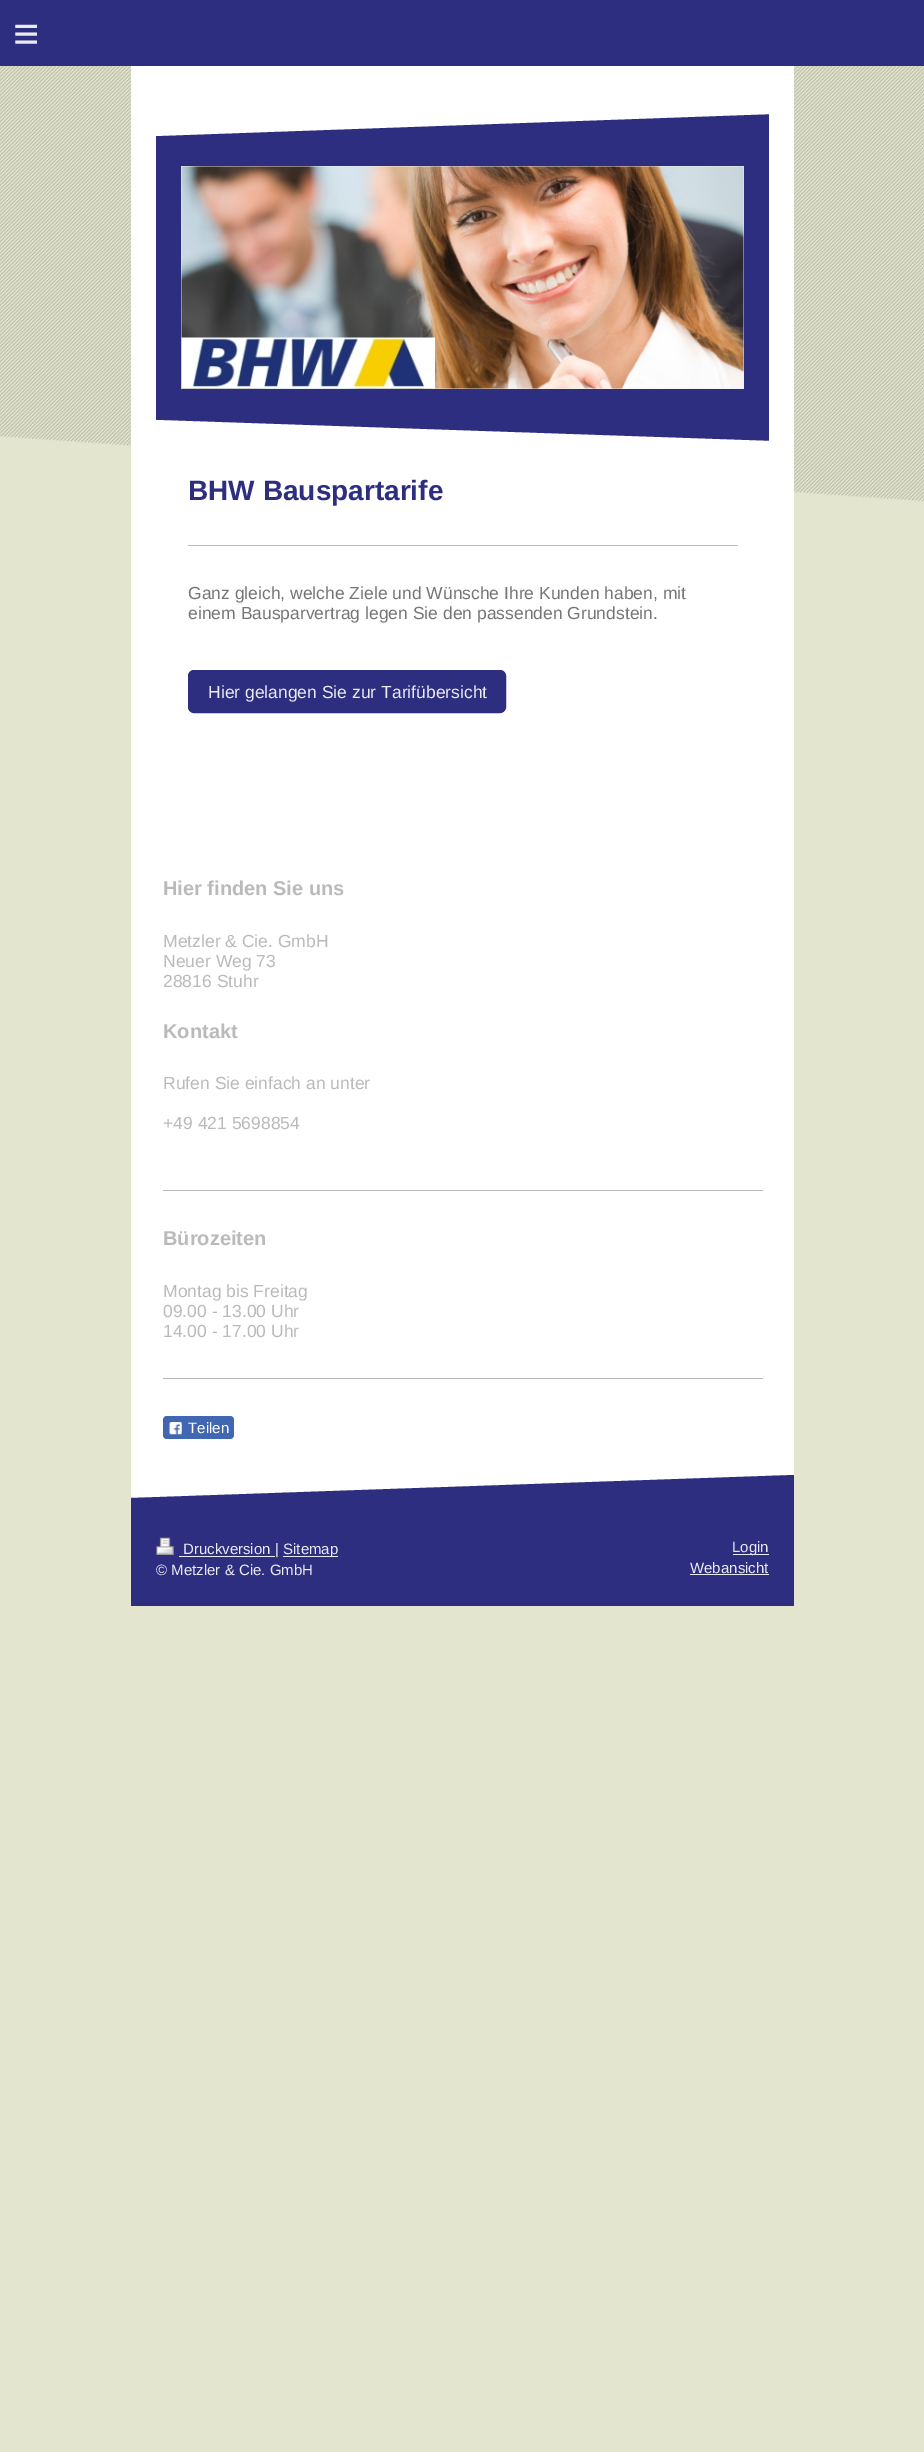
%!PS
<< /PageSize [924 2452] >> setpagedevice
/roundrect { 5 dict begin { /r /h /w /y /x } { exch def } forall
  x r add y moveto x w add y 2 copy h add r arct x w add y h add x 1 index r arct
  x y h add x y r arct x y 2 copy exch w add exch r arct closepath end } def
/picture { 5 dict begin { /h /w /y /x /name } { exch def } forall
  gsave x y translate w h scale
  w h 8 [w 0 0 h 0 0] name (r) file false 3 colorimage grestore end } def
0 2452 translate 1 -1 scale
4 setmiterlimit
0.894 0.898 0.808 setrgbcolor
0 0 924 2452 rectfill
(img1.rgb) 0 66 924 436 picture
0.18 0.18 0.506 setrgbcolor
0 0 924 66 rectfill
/LiberationSans-Regular [45 0 0 -45 0 0] selectfont
0.918 0.918 0.949 setrgbcolor
13 49 moveto 13 0 (≡) ashow
1 setgray
131 66 663 1432 rectfill
0.18 0.18 0.506 setrgbcolor
156 114 613 327 rectfill
gsave
156 104 613 347 rectclip
1 setgray
newpath 125 82 moveto 798 58 lineto 800 113 lineto 127 137 lineto closepath fill
grestore
0.933 setgray
181 166 563 223 rectfill
(img2.rgb) 181 166 563 223 picture
(img3.rgb) 181 337 254 52 picture
gsave
156 104 613 347 rectclip
1 setgray
newpath 127 419 moveto 800 442 lineto 798 497 lineto 125 473 lineto closepath fill
grestore
/LiberationSans-Bold [28 0 0 -28 0 0] selectfont
0.18 0.18 0.506 setrgbcolor
188 500 moveto (BHW Bauspartarife) show
0.729 setgray
188 545 550 1 rectfill
/LiberationSans-Regular [17.5 0 0 -17.5 0 0] selectfont
0.459 setgray
188 599 moveto (Ganz gleich, welche Ziele und Wünsche Ihre Kunden haben, mit) show
188 619 moveto (einem Bausparvertrag legen Sie den passenden Grundstein.) show
0.18 0.18 0.506 setrgbcolor
188.5 670.5 317 42 5.5 roundrect gsave fill grestore
stroke
0.918 0.918 0.949 setrgbcolor
208 698 moveto (Hier gelangen Sie zur Tarifübersicht) show
/LiberationSans-Bold [20 0 0 -20 0 0] selectfont
0.729 setgray
163 895 moveto (Hier finden Sie uns) show
/LiberationSans-Regular [17.5 0 0 -17.5 0 0] selectfont
163 947 moveto (Metzler & Cie. GmbH) show
163 967 moveto (Neuer Weg 73) show
163 987 moveto (28816 Stuhr) show
/LiberationSans-Bold [20 0 0 -20 0 0] selectfont
163 1038 moveto (Kontakt) show
/LiberationSans-Regular [17.5 0 0 -17.5 0 0] selectfont
163 1089 moveto (Rufen Sie einfach an unter) show
163 1129 moveto (+49 421 5698854) show
163 1190 600 1 rectfill
/LiberationSans-Bold [20 0 0 -20 0 0] selectfont
163 1245 moveto (Bürozeiten) show
/LiberationSans-Regular [17.5 0 0 -17.5 0 0] selectfont
163 1297 moveto (Montag bis Freitag) show
163 1317 moveto (09.00 - 13.00 Uhr) show
163 1337 moveto (14.00 - 17.00 Uhr) show
163 1378 600 1 rectfill
0.259 0.404 0.698 setrgbcolor
163 1416 71 23 4 roundrect fill
(img4.rgb) 169 1422 13 13 picture
/LiberationSans-Regular [15 0 0 -15 0 0] selectfont
1 setgray
188 1433 moveto (Teilen) show
0.18 0.18 0.506 setrgbcolor
newpath 131 1498 moveto 794 1475 lineto 794 1525 lineto 131 1548 lineto closepath fill
131 1525 663 81 rectfill
(img5.rgb) 156 1537 18 18 picture
0.918 0.918 0.949 setrgbcolor
179 1556 96 1 rectfill
183 1554 moveto (Druckversion |) show
283 1556 55 1 rectfill
283 1554 moveto (Sitemap) show
156 1575 moveto (© Metzler & Cie. GmbH) show
733 1554 36 1 rectfill
732 1552 moveto (Login) show
690 1573 moveto (Webansicht) show
690 1574 79 1 rectfill
showpage
